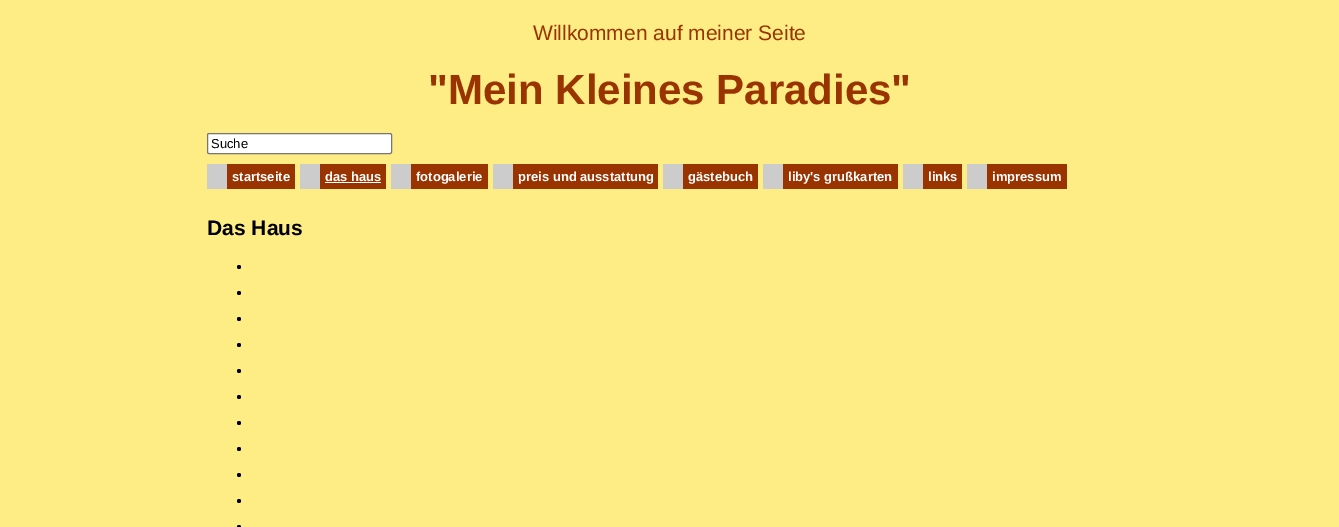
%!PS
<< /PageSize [1339 527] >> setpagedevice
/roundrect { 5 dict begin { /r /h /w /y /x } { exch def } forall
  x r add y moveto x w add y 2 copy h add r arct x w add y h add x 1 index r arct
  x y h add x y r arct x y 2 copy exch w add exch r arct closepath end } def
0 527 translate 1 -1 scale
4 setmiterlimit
0.996 0.925 0.522 setrgbcolor
0 0 1339 527 rectfill
/LiberationSans-Regular [21 0 0 -21 0 0] selectfont
0.6 0.2 0 setrgbcolor
533 40 moveto (Willkommen auf meiner Seite) show
/LiberationSans-Bold [42 0 0 -42 0 0] selectfont
428 104 moveto ("Mein Kleines Paradies") show
1 setgray
207.5 133.5 184 20 1.5 roundrect gsave fill grestore
0.463 setgray
stroke
/LiberationSans-Regular [13 0 0 -13 0 0] selectfont
0 setgray
211 148 moveto (Suche) show
0.8 setgray
207 164 20 25 rectfill
0.6 0.2 0 setrgbcolor
227 164 68 25 rectfill
/LiberationSans-Bold [13 0 0 -13 0 0] selectfont
1 setgray
232 181 moveto (startseite) show
0.8 setgray
300 164 20 25 rectfill
0.6 0.2 0 setrgbcolor
320 164 66 25 rectfill
1 setgray
325 181 moveto (das haus) show
325 182 56 1 rectfill
0.8 setgray
391 164 20 25 rectfill
0.6 0.2 0 setrgbcolor
411 164 77 25 rectfill
1 setgray
416 181 moveto (fotogalerie) show
0.8 setgray
493 164 20 25 rectfill
0.6 0.2 0 setrgbcolor
513 164 145 25 rectfill
1 setgray
518 181 moveto (preis und ausstattung) show
0.8 setgray
663 164 20 25 rectfill
0.6 0.2 0 setrgbcolor
683 164 75 25 rectfill
1 setgray
688 181 moveto (gästebuch) show
0.8 setgray
763 164 20 25 rectfill
0.6 0.2 0 setrgbcolor
783 164 115 25 rectfill
1 setgray
788 181 moveto (liby's grußkarten) show
0.8 setgray
903 164 20 25 rectfill
0.6 0.2 0 setrgbcolor
923 164 39 25 rectfill
1 setgray
928 181 moveto (links) show
0.8 setgray
967 164 20 25 rectfill
0.6 0.2 0 setrgbcolor
987 164 80 25 rectfill
1 setgray
992 181 moveto (impressum) show
/LiberationSans-Bold [21 0 0 -21 0 0] selectfont
0 setgray
207 235 moveto (Das Haus) show
newpath 239 267 2 0 360 arc closepath fill
newpath 239 293 2 0 360 arc closepath fill
newpath 239 319 2 0 360 arc closepath fill
newpath 239 345 2 0 360 arc closepath fill
newpath 239 371 2 0 360 arc closepath fill
newpath 239 397 2 0 360 arc closepath fill
newpath 239 423 2 0 360 arc closepath fill
newpath 239 449 2 0 360 arc closepath fill
newpath 239 475 2 0 360 arc closepath fill
newpath 239 501 2 0 360 arc closepath fill
newpath 239 527 2 0 360 arc closepath fill
showpage
